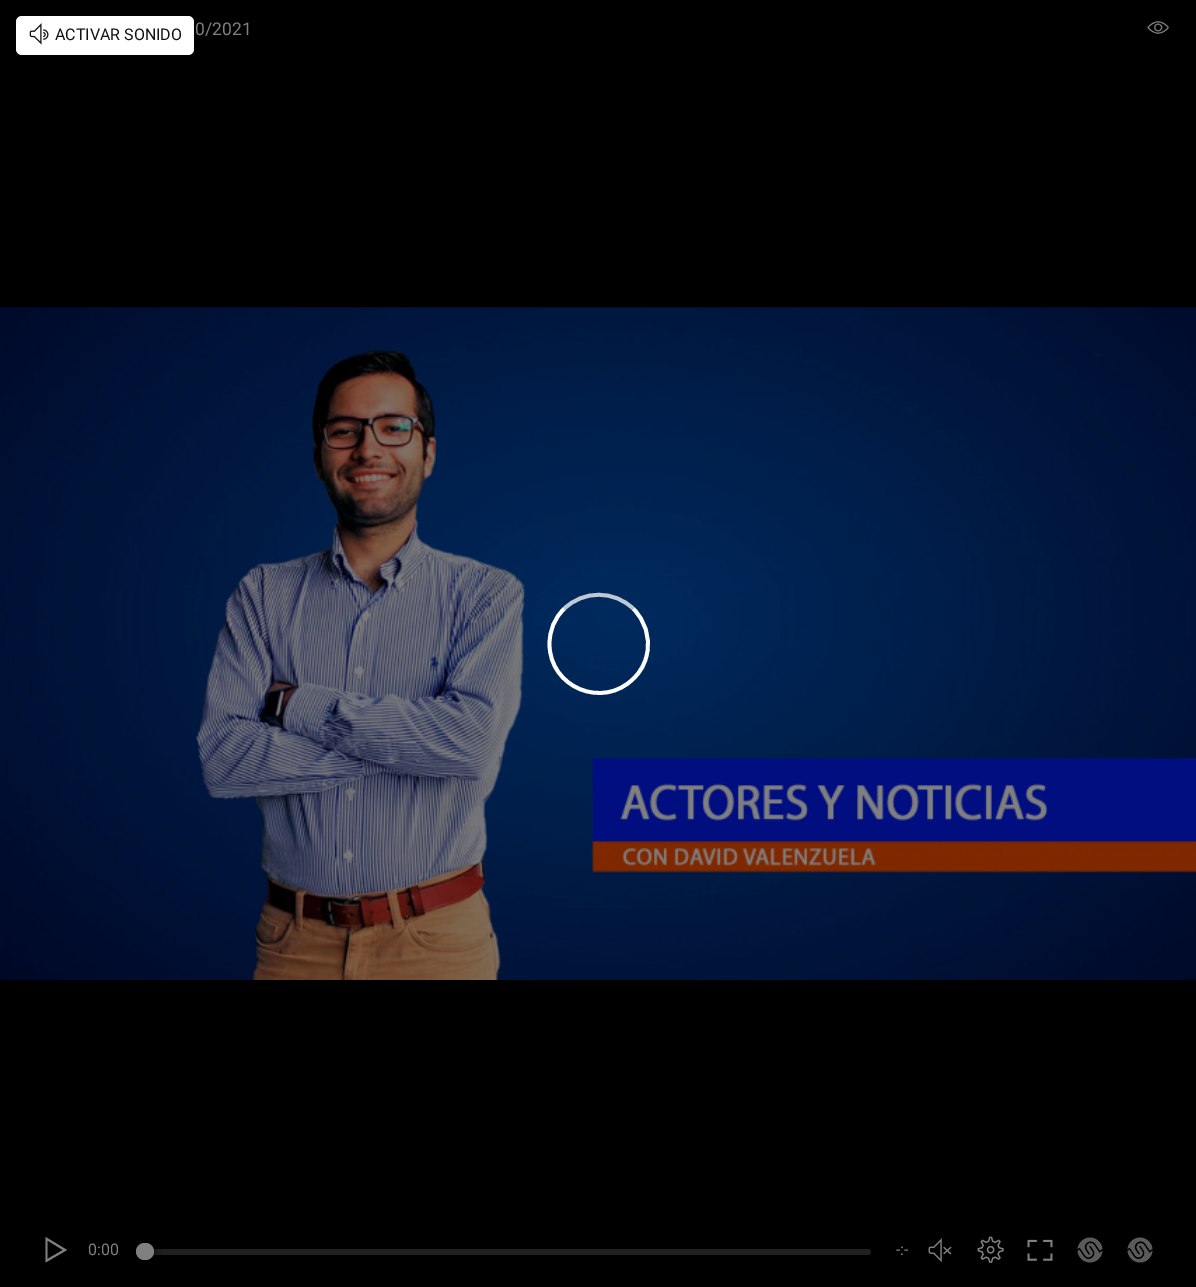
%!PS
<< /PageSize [1196 1287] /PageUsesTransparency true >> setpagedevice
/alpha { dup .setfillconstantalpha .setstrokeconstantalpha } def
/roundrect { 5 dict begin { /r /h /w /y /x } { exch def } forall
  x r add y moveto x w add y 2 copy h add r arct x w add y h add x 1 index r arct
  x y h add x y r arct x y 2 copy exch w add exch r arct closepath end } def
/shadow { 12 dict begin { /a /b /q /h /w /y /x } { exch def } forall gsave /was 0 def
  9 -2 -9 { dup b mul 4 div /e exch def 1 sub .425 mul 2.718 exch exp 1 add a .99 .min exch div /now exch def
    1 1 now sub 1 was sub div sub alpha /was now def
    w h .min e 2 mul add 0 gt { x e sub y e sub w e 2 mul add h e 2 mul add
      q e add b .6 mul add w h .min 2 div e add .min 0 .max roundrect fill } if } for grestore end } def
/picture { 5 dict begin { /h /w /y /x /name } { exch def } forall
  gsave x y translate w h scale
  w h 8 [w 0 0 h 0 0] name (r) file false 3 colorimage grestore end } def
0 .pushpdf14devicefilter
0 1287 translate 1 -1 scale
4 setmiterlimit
0 setgray
0 0 1196 1287 rectfill
/Roboto-Regular [17.5 0 0 -17.5 0 0] selectfont
0.502 setgray
195 35 moveto (0/2021) show
(img1.rgb) 1147 21 22 13 picture
1 setgray
16 16 178 39 6 roundrect fill
(img2.rgb) 29 23 20 22 picture
/Roboto-Regular [16 0 0 -16 0 0] selectfont
0.071 setgray
55 40 moveto (ACTIVAR SONIDO) show
(img3.rgb) 0 307 1196 673 picture
(img4.rgb) 0 307 1196 1 picture
0.75 alpha
1 setgray
3.8 setlinewidth
newpath 564 609 moveto 583 590 614.5 590 633.5 609 curveto stroke
1 alpha
newpath 633.5 609 moveto 645 620.5 650.5 637.5 647 653.5 curveto 645.5 663 640.5 672 633.5 678.5 curveto 603 709.5 549.5 687.5 549.5 644 curveto 549.5 630.5 554.5 618 564 609 curveto stroke
0.502 setgray
newpath 45.5 1237 moveto 45.5 1262.5 lineto 67 1250 lineto closepath 47.5 1240.5 moveto 63 1250 lineto 47.5 1259 lineto closepath fill
88 1255 moveto (0:00) show
0.125 setgray
144 1249 727 6 3 roundrect fill
0 setgray
136 1243 18 17 8.5 4 0.66 shadow
0.502 setgray
136 1243 18 17 8.5 roundrect fill
896 1255 moveto (-:-) show
(img5.rgb) 928 1238 24 25 picture
(img6.rgb) 977 1236 27 27 picture
(img7.rgb) 1027 1239 26 22 picture
(img8.rgb) 1077 1237 26 26 picture
(img8.rgb) 1127 1237 26 26 picture
.poppdf14devicefilter showpage
